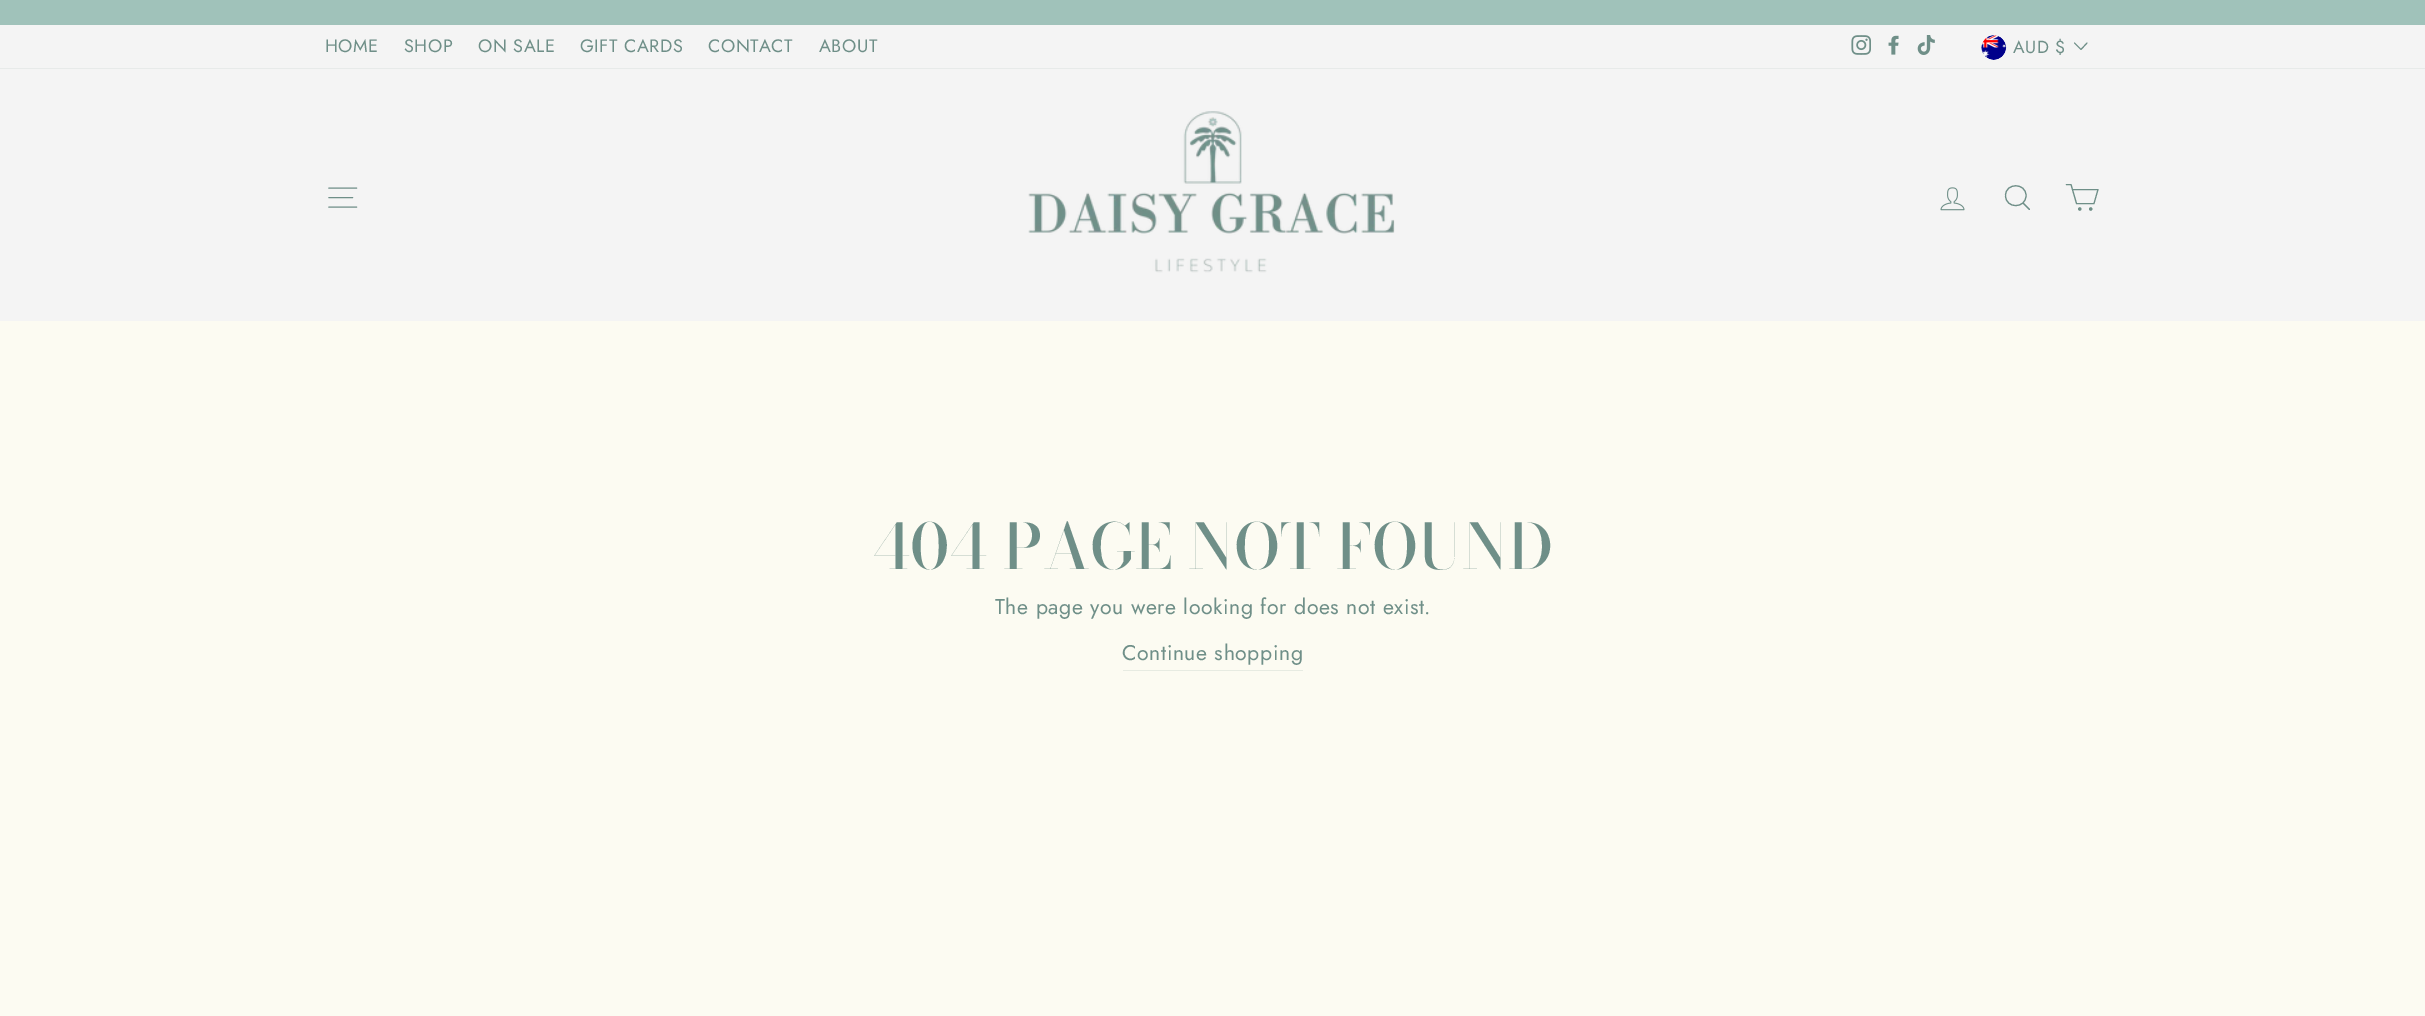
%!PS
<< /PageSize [2425 1016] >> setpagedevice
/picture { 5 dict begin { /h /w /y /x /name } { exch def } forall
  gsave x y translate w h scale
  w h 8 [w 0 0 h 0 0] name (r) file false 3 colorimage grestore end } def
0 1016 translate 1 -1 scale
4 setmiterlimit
0.988 0.984 0.949 setrgbcolor
0 0 2425 1016 rectfill
0.627 0.761 0.729 setrgbcolor
0 0 2425 25 rectfill
0.957 setgray
0 25 2425 43 rectfill
/Jost-Regular [18 0 0 -18 0 0] selectfont
0.435 0.561 0.533 setrgbcolor
325 52 moveto 0.55 0 (HOME) ashow
404 52 moveto 0.55 0 (SHOP) ashow
478 52 moveto 0.55 0 (ON SALE) ashow
580 52 moveto 0.55 0 (GIFT CARDS) ashow
708 52 moveto 0.55 0 (CONTACT) ashow
819 52 moveto 0.55 0 (ABOUT) ashow
(img1.rgb) 1851 35 20 20 picture
(img2.rgb) 1888 35 11 20 picture
(img3.rgb) 1917 35 18 20 picture
(img4.rgb) 1981 35 26 25 picture
/Jost-Regular [17.5 0 0 -17.5 0 0] selectfont
2013 53 moveto 0.5 0 (AUD $) ashow
1 setlinecap
1 setlinejoin
newpath 2074.5 43 moveto 2081 49.5 lineto 2087 43 lineto stroke
0.957 setgray
0 69 2425 252 rectfill
0.906 0.918 0.914 setrgbcolor
0 68 2425 1 rectfill
0.435 0.561 0.533 setrgbcolor
1.1 setlinewidth
newpath 329 188 moveto 356.5 188 lineto 329 197.5 moveto 352.5 197.5 lineto 329 207 moveto 356.5 207 lineto stroke
(img5.rgb) 1028 111 367 162 picture
(img6.rgb) 1940 187 25 24 picture
newpath 2026 195.5 moveto 2026 209 2005.5 209 2005.5 195.5 curveto 2005.5 182.5 2026 182.5 2026 195.5 curveto closepath 2029.5 209.5 moveto 2023 203 lineto stroke
newpath 2072.5 189.5 moveto 2098 189.5 lineto 2094 203.5 lineto 2076.5 203.5 lineto 2071 184.5 lineto 2066.5 184.5 lineto stroke
newpath 2079.8 209 1.1 0 360 arc closepath gsave fill grestore
0 setlinecap
0 setlinejoin
stroke
newpath 2090.7 209 1.1 0 360 arc closepath gsave fill grestore
stroke
/BodoniModa-Medium [62.5 0 0 -62.5 0 0] selectfont
872 569 moveto (404 PAGE NOT FOUND) show
/Jost-Regular [21.25 0 0 -21.25 0 0] selectfont
995 614 moveto 0.55 0 (The page you were looking for does not exist.) ashow
0.906 0.922 0.886 setrgbcolor
1123 670 180 1 rectfill
0.435 0.561 0.533 setrgbcolor
1122 660 moveto 0.55 0 (Continue shopping) ashow
showpage
